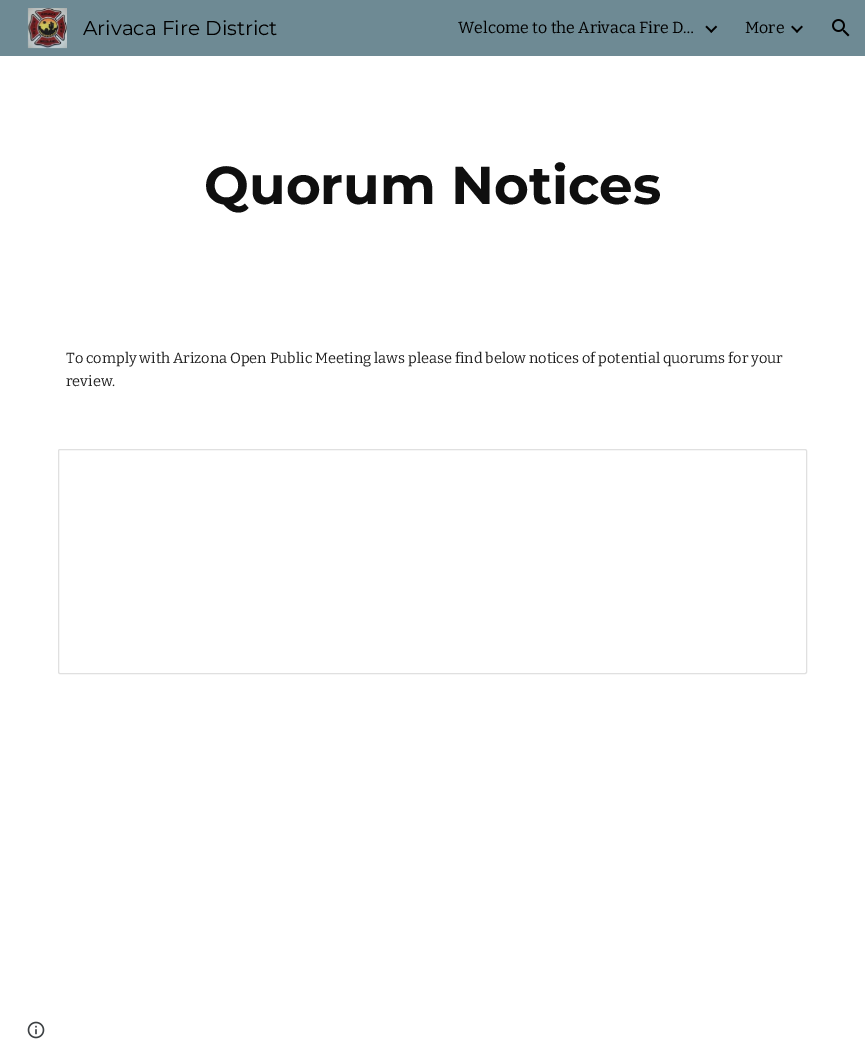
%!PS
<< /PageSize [865 1064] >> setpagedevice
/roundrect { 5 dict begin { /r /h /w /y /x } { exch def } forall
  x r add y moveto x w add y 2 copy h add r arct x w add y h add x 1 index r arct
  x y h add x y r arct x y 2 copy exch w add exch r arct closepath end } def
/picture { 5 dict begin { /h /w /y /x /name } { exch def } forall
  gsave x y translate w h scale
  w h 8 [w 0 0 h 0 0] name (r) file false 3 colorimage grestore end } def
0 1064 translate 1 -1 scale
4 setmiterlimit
1 setgray
0 0 865 1064 rectfill
0.431 0.541 0.58 setrgbcolor
0 0 865 56 rectfill
(img1.rgb) 27 8 40 41 picture
/Montserrat-Regular [20 0 0 -20 0 0] selectfont
0 setgray
83 35 moveto (Arivaca Fire District) show
/Bitter-Regular [16 0 0 -16 0 0] selectfont
458 33 moveto (Welcome to the Arivaca Fire D…) show
(img2.rgb) 705 25 13 8 picture
745 33 moveto (More) show
(img3.rgb) 791 25 12 8 picture
(img4.rgb) 832 19 18 18 picture
/Montserrat-Bold [53.25 0 0 -53.25 0 0] selectfont
0.059 setgray
204 204 moveto (Quorum Notices) show
/Bitter-Regular [14.65 0 0 -14.65 0 0] selectfont
0.129 setgray
66 363 moveto (To comply with Arizona Open Public Meeting laws please find below notices of potential quorums for your) show
66 386 moveto (review.) show
0.878 setgray
58.5 449.5 748 224 1.5 roundrect stroke
(img5.rgb) 27 1021 18 18 picture
showpage
